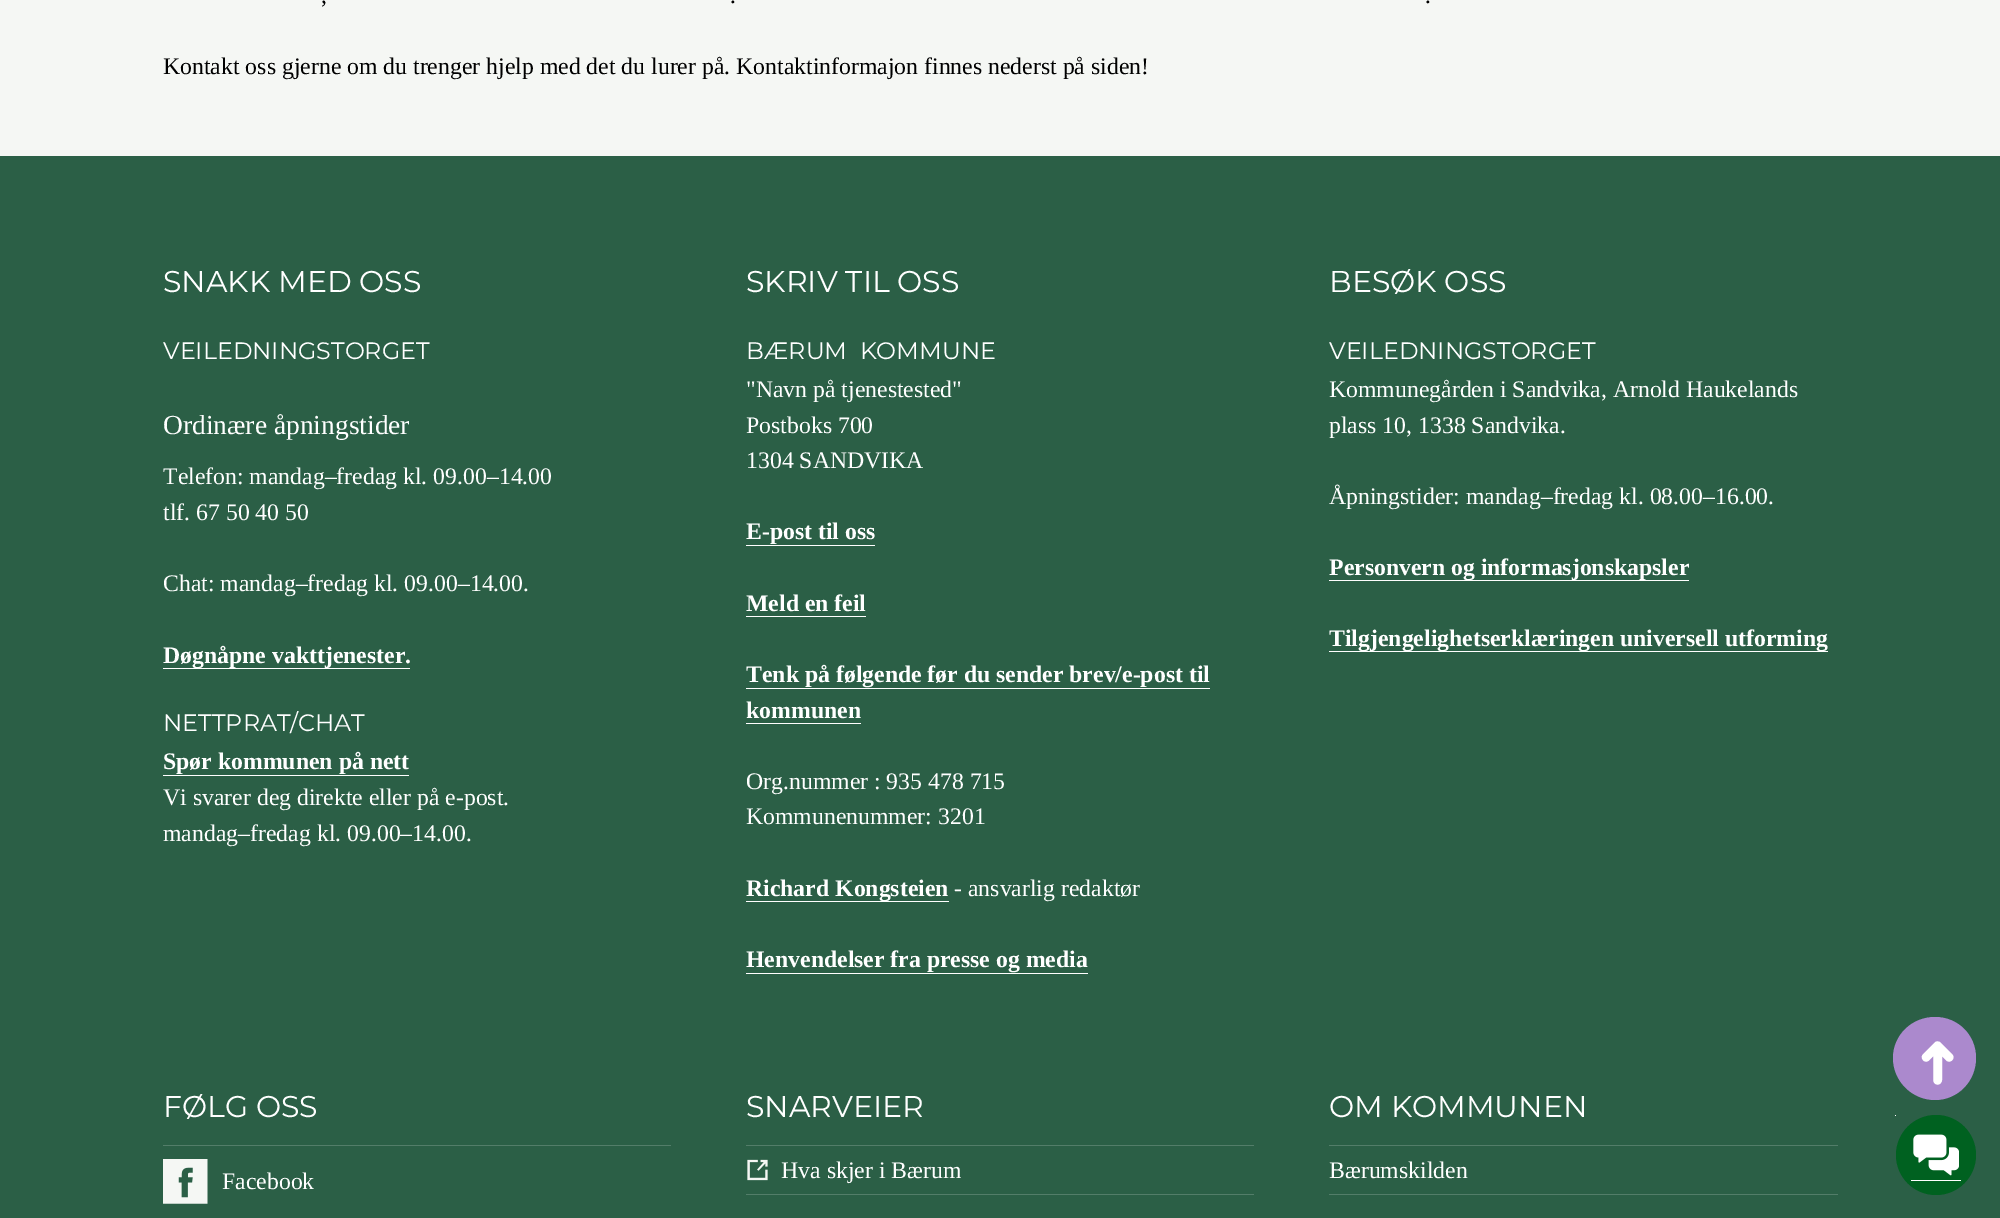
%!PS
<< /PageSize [2000 1218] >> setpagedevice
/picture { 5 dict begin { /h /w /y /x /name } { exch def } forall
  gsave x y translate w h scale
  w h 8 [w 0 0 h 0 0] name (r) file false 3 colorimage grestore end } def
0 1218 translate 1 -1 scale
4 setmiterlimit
0.961 0.969 0.957 setrgbcolor
0 0 2000 1218 rectfill
/LiberationSerif-Regular [23.75 0 0 -23.75 0 0] selectfont
0 setgray
321 3 moveto (,) show
730 3 moveto (.) show
1425 3 moveto (.) show
163 74 moveto (Kontakt oss gjerne om du trenger hjelp med det du lurer på. Kontaktinformajon finnes nederst på siden!) show
0.169 0.373 0.275 setrgbcolor
0 156 2000 1062 rectfill
0.671 0.537 0.804 setrgbcolor
newpath 1893 1058 moveto 1893 1035 1912 1017 1935 1017 curveto 1958 1017 1976 1035 1976 1058 curveto 1976 1081 1958 1100 1935 1100 curveto 1912 1100 1893 1081 1893 1058 curveto closepath fill
/DejaVuSans-Bold [59 0 0 -59 0 0] selectfont
1 setgray
gsave 1957 1088 translate -90 rotate 0 0 moveto (➜) show grestore
/Montserrat-Regular [30 0 0 -30 0 0] selectfont
163 292 moveto (SNAKK MED OSS) show
/Montserrat-Regular [23.75 0 0 -23.75 0 0] selectfont
163 359 moveto (VEILEDNINGSTORGET) show
/LiberationSerif-Regular [27.5 0 0 -27.5 0 0] selectfont
163 434 moveto (Ordinære åpningstider) show
/LiberationSerif-Regular [23.75 0 0 -23.75 0 0] selectfont
163 484 moveto (Telefon: mandag–fredag kl. 09.00–14.00) show
163 520 moveto (tlf. 67 50 40 50) show
163 591 moveto (Chat: mandag–fredag kl. 09.00–14.00.) show
163 668 247 1 rectfill
/LiberationSerif-Bold [23.75 0 0 -23.75 0 0] selectfont
163 663 moveto (Døgnåpne vakttjenester.) show
/Montserrat-Regular [23.75 0 0 -23.75 0 0] selectfont
163 731 moveto (NETTPRAT/CHAT) show
/LiberationSerif-Bold [23.75 0 0 -23.75 0 0] selectfont
163 769 moveto (Spør kommunen på nett) show
163 775 246 1 rectfill
/LiberationSerif-Regular [23.75 0 0 -23.75 0 0] selectfont
163 805 moveto (Vi svarer deg direkte eller på e-post.) show
163 841 moveto (mandag–fredag kl. 09.00–14.00.) show
/Montserrat-Regular [30 0 0 -30 0 0] selectfont
746 292 moveto (SKRIV TIL OSS) show
/Montserrat-Regular [23.75 0 0 -23.75 0 0] selectfont
746 359 moveto (BÆRUM  KOMMUNE) show
/LiberationSerif-Regular [23.75 0 0 -23.75 0 0] selectfont
746 397 moveto ("Navn på tjenestested") show
746 433 moveto (Postboks 700) show
746 468 moveto (1304 SANDVIKA) show
/LiberationSerif-Bold [23.75 0 0 -23.75 0 0] selectfont
746 539 moveto (E-post til oss) show
746 545 129 1 rectfill
746 611 moveto (Meld en feil) show
746 616 120 1 rectfill
746 682 moveto (Tenk på følgende før du sender brev/e-post til) show
746 688 464 1 rectfill
746 718 moveto (kommunen) show
746 723 115 1 rectfill
/LiberationSerif-Regular [23.75 0 0 -23.75 0 0] selectfont
746 789 moveto (Org.nummer : 935 478 715) show
746 824 moveto (Kommunenummer: 3201) show
746 901 203 1 rectfill
/LiberationSerif-Bold [23.75 0 0 -23.75 0 0] selectfont
746 896 moveto (Richard Kongsteien) show
/LiberationSerif-Regular [23.75 0 0 -23.75 0 0] selectfont
954 896 moveto (- ansvarlig redaktør) show
/LiberationSerif-Bold [23.75 0 0 -23.75 0 0] selectfont
746 967 moveto (Henvendelser fra presse og media) show
746 973 342 1 rectfill
/Montserrat-Regular [30 0 0 -30 0 0] selectfont
1329 292 moveto (BESØK OSS) show
/Montserrat-Regular [23.75 0 0 -23.75 0 0] selectfont
1329 359 moveto (VEILEDNINGSTORGET) show
/LiberationSerif-Regular [23.75 0 0 -23.75 0 0] selectfont
1329 397 moveto (Kommunegården i Sandvika, Arnold Haukelands) show
1329 433 moveto (plass 10, 1338 Sandvika.) show
1329 504 moveto (Åpningstider: mandag–fredag kl. 08.00–16.00.) show
1329 580 360 1 rectfill
/LiberationSerif-Bold [23.75 0 0 -23.75 0 0] selectfont
1329 575 moveto (Personvern og informasjonskapsler) show
1329 651 499 1 rectfill
1329 646 moveto (Tilgjengelighetserklæringen universell utforming) show
0.325 0.49 0.412 setrgbcolor
163 1145 508 1 rectfill
/Montserrat-Regular [30 0 0 -30 0 0] selectfont
1 setgray
163 1117 moveto (FØLG OSS) show
(img1.rgb) 163 1159 45 45 picture
/LiberationSerif-Regular [23.75 0 0 -23.75 0 0] selectfont
222 1189 moveto (Facebook) show
0.325 0.49 0.412 setrgbcolor
746 1145 508 1 rectfill
/Montserrat-Regular [30 0 0 -30 0 0] selectfont
1 setgray
746 1117 moveto (SNARVEIER) show
(img2.rgb) 747 1159 21 22 picture
0.325 0.49 0.412 setrgbcolor
746 1194 508 1 rectfill
/LiberationSerif-Regular [23.75 0 0 -23.75 0 0] selectfont
1 setgray
781 1178 moveto (Hva skjer i Bærum) show
0.325 0.49 0.412 setrgbcolor
1329 1145 509 1 rectfill
/Montserrat-Regular [30 0 0 -30 0 0] selectfont
1 setgray
1329 1117 moveto (OM KOMMUNEN) show
0.325 0.49 0.412 setrgbcolor
1329 1194 509 1 rectfill
/LiberationSerif-Regular [23.75 0 0 -23.75 0 0] selectfont
1 setgray
1329 1178 moveto (Bærumskilden) show
0 0.38 0.125 setrgbcolor
newpath 1936 1155 40 0 360 arc closepath fill
1 setgray
1911 1180 50 1 rectfill
1895 1115 1 1 rectfill
(img3.rgb) 1913 1134 46 42 picture
showpage
